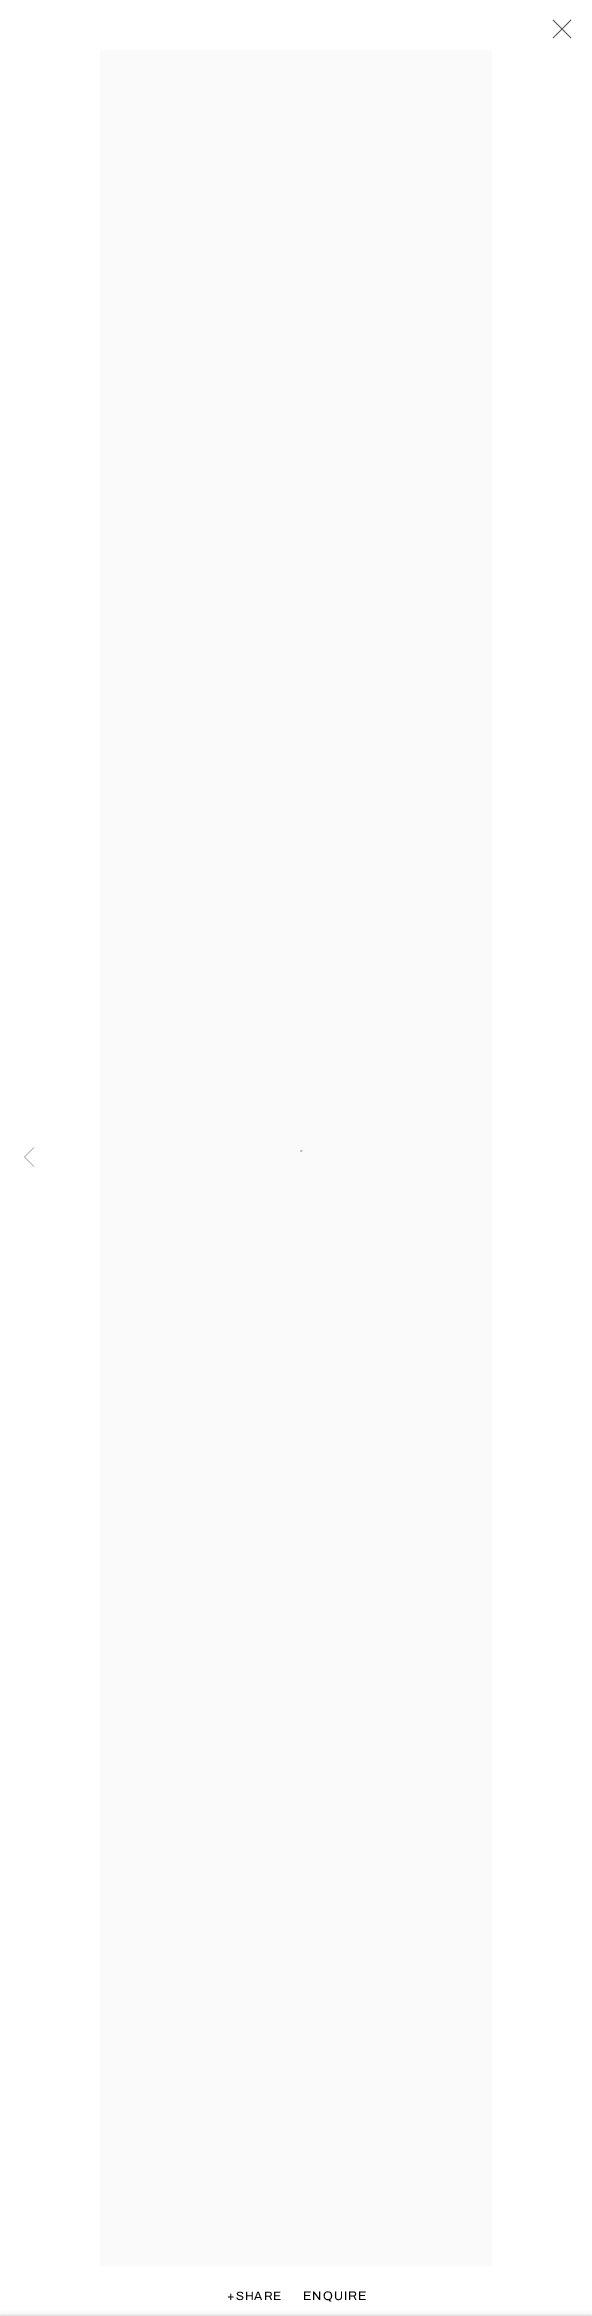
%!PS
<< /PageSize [592 2316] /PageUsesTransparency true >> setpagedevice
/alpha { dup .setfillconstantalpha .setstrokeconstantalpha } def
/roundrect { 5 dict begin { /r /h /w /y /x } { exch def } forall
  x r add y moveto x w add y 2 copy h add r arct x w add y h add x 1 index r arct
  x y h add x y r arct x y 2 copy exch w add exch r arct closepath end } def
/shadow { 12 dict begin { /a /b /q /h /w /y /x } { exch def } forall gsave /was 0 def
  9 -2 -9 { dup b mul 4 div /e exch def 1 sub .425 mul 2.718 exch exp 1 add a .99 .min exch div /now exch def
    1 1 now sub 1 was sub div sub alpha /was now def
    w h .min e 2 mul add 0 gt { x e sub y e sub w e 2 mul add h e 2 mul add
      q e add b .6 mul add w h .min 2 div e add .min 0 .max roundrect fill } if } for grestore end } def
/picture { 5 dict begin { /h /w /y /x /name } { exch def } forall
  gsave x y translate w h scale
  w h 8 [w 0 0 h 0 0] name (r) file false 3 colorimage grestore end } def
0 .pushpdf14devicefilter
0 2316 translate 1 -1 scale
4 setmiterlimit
1 setgray
0 0 592 2316 rectfill
(img1.rgb) 552 19 20 20 picture
(img2.rgb) 24 1147 11 20 picture
0.98 setgray
100 50 392 2216 rectfill
0.733 setgray
1.8 setlinewidth
1 setlinecap
newpath 301 1151 moveto 301.5 1151 lineto stroke
/Archivo-SemiBold [12 0 0 -12 0 0] selectfont
0 setgray
227 2300 moveto 1 0 (+SHARE) ashow
/Archivo-SemiBold [12.5 0 0 -12.5 0 0] selectfont
303 2300 moveto 1 0 (ENQUIRE) ashow
0 2316 592 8 0 2.5 0.23 shadow
.poppdf14devicefilter showpage
